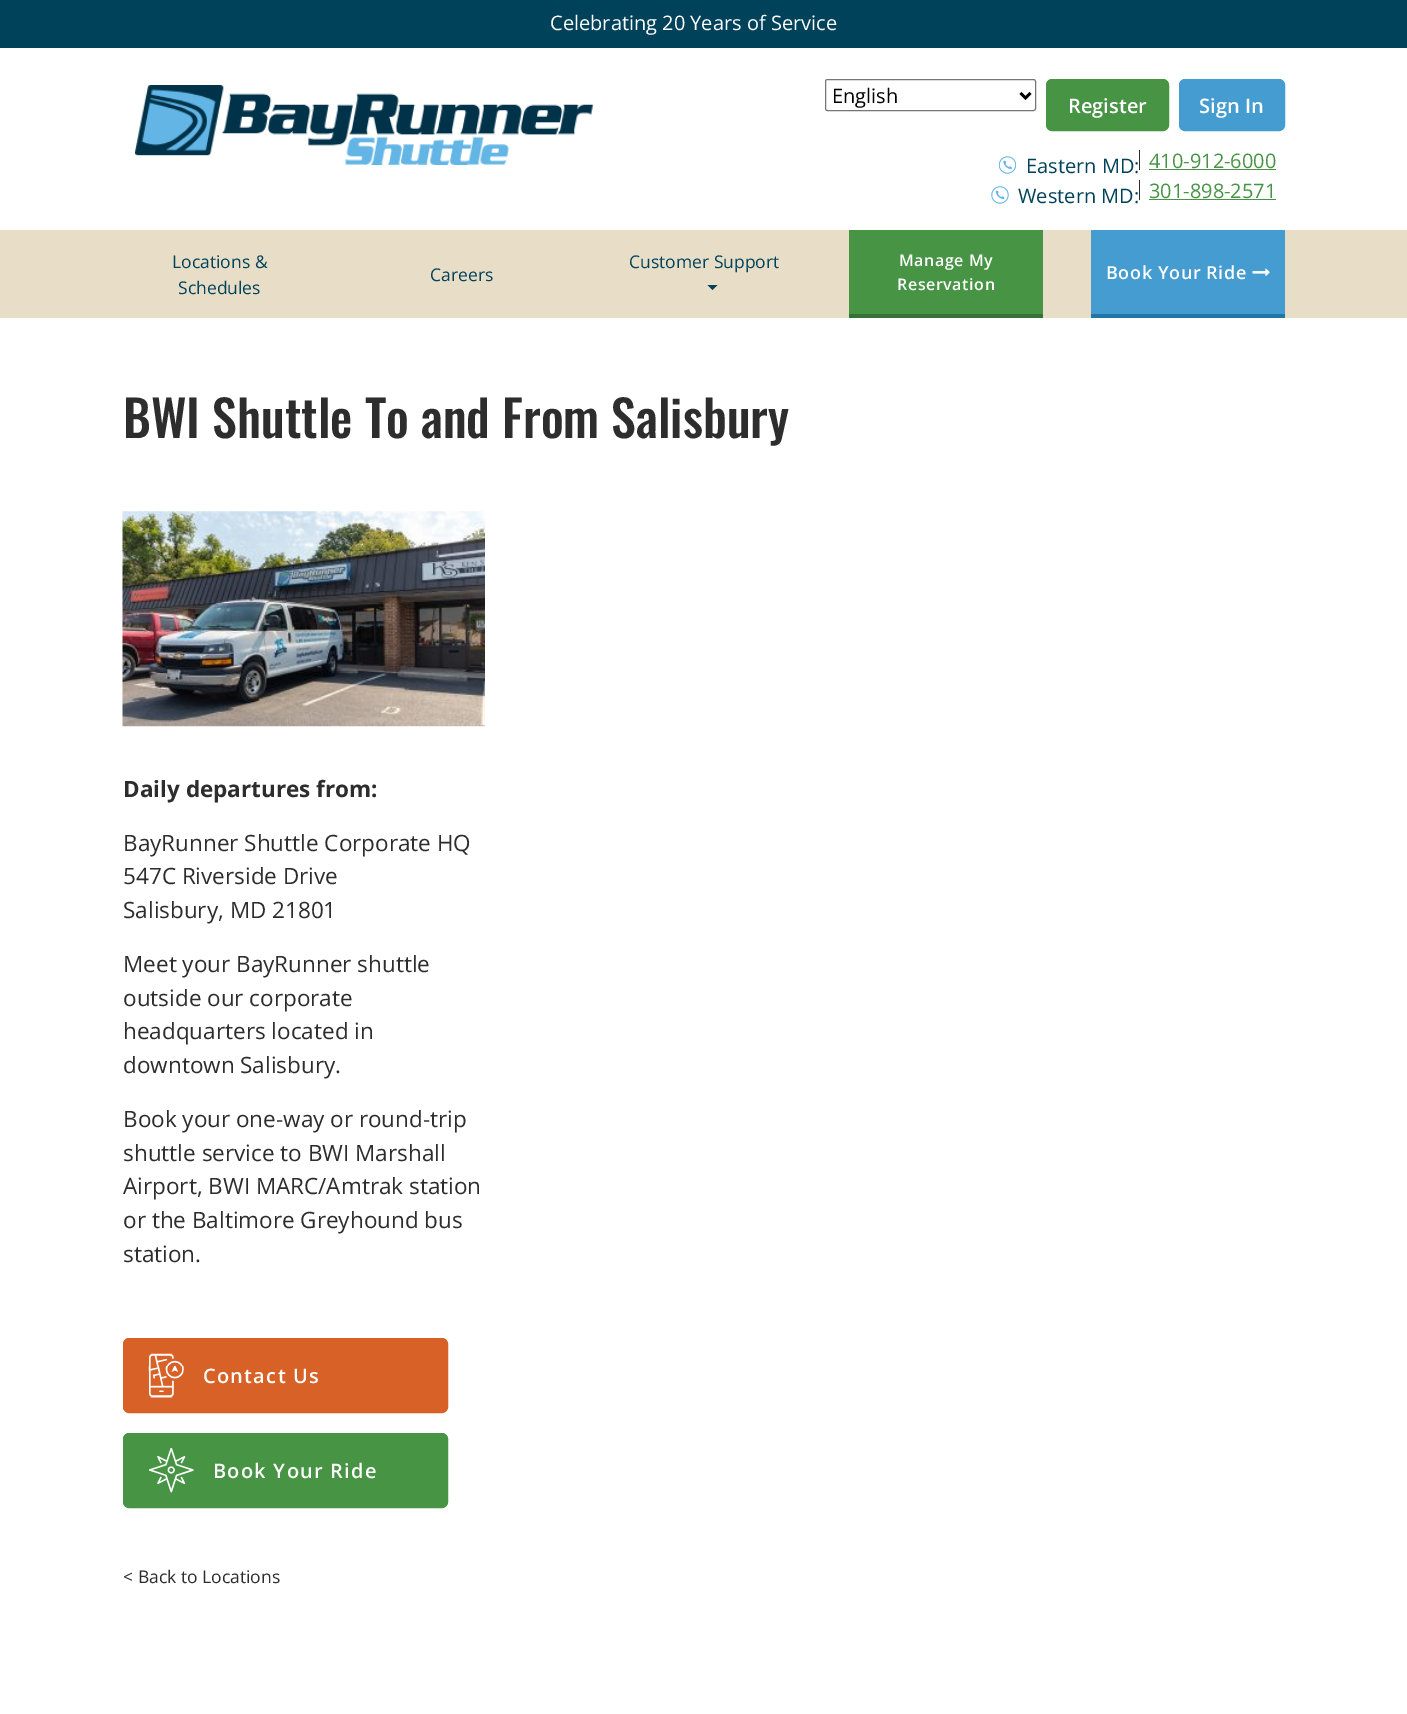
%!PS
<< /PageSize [1407 1714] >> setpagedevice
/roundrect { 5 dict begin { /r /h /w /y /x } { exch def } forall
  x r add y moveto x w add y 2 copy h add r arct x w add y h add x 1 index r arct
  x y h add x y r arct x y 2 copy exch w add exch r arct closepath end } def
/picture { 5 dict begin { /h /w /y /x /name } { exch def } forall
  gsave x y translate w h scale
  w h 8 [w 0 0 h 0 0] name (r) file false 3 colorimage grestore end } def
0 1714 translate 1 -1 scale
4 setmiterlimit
1 setgray
0 0 1407 1714 rectfill
0.004 0.259 0.357 setrgbcolor
0 0 1407 48 rectfill
/OpenSans-Regular [20 0 0 -20 0 0] selectfont
1 setgray
550 30 moveto (Celebrating 20 Years of Service) show
(img1.rgb) 135 85 459 80 picture
0.463 setgray
825.5 79.5 210 31 2 roundrect stroke
0 setgray
2.5 setlinewidth
newpath 1020.5 93 moveto 1025.5 98 lineto 1030.5 93 lineto stroke
832 103 moveto (English) show
0.278 0.58 0.271 setrgbcolor
1046.5 79.5 122 51 5.5 roundrect gsave fill grestore
1 setlinewidth
stroke
/OpenSans-SemiBold [20 0 0 -20 0 0] selectfont
1 setgray
1068 113 moveto (Register) show
0.271 0.612 0.816 setrgbcolor
1179.5 79.5 105 51 5.5 roundrect gsave fill grestore
stroke
1 setgray
1199 113 moveto (Sign In) show
(img2.rgb) 999 156 17 18 picture
/OpenSans-Regular [20 0 0 -20 0 0] selectfont
0.004 0.259 0.357 setrgbcolor
1026 173 moveto (Eastern MD:) show
0.176 setgray
1139 150 1 20 rectfill
0.278 0.58 0.271 setrgbcolor
1149 168 moveto (410-912-6000) show
1149 169 127 1 rectfill
(img3.rgb) 991 186 18 18 picture
0.004 0.259 0.357 setrgbcolor
1018 203 moveto (Western MD:) show
0.176 setgray
1139 180 1 20 rectfill
0.278 0.58 0.271 setrgbcolor
1149 198 moveto (301-898-2571) show
1149 199 127 1 rectfill
0.91 0.871 0.784 setrgbcolor
0 230 1407 88 rectfill
/OpenSans-Regular [17.5 0 0 -17.5 0 0] selectfont
0.004 0.259 0.357 setrgbcolor
172 268 moveto (Locations &) show
178 294 moveto (Schedules) show
430 281 moveto (Careers) show
629 268 moveto (Customer Support) show
newpath 707.5 285 moveto 717.5 285 lineto 712.5 290 lineto closepath fill
0.278 0.58 0.271 setrgbcolor
849 230 194 84 rectfill
0.212 0.443 0.208 setrgbcolor
849 314 194 4 rectfill
/OpenSans-SemiBold [16 0 0 -16 0 0] selectfont
1 setgray
899 266 moveto 0.6 0 (Manage My) ashow
897 290 moveto 0.6 0 (Reservation) ashow
0.271 0.612 0.816 setrgbcolor
1091 230 194 84 rectfill
0.122 0.463 0.659 setrgbcolor
1091 314 194 4 rectfill
/OpenSans-SemiBold [18 0 0 -18 0 0] selectfont
1 setgray
1106 279 moveto 0.6 0 (Book Your Ride) ashow
(img4.rgb) 1252 268 18 9 picture
/Oswald-Medium [50 0 0 -50 0 0] selectfont
0.176 setgray
123 438 moveto (BWI Shuttle To and From Salisbury) show
(img5.rgb) 122 511 363 216 picture
/OpenSans-Bold [22.5 0 0 -22.5 0 0] selectfont
123 797 moveto (Daily departures from:) show
/OpenSans-Regular [22.5 0 0 -22.5 0 0] selectfont
123 851 moveto (BayRunner Shuttle Corporate HQ) show
123 884 moveto (547C Riverside Drive) show
123 918 moveto (Salisbury, MD 21801) show
123 972 moveto (Meet your BayRunner shuttle) show
123 1006 moveto (outside our corporate) show
123 1039 moveto (headquarters located in) show
123 1073 moveto (downtown Salisbury.) show
123 1127 moveto (Book your one-way or round-trip) show
123 1161 moveto (shuttle service to BWI Marshall) show
123 1194 moveto (Airport, BWI MARC/Amtrak station) show
123 1228 moveto (or the Baltimore Greyhound bus) show
123 1262 moveto (station.) show
0.843 0.38 0.153 setrgbcolor
123.5 1338.5 324 74 5.5 roundrect gsave fill grestore
stroke
(img6.rgb) 148 1353 36 45 picture
/OpenSans-SemiBold [20 0 0 -20 0 0] selectfont
1 setgray
203 1383 moveto 1.25 0 (Contact Us) ashow
0.278 0.58 0.271 setrgbcolor
123.5 1433.5 324 74 5.5 roundrect gsave fill grestore
stroke
(img7.rgb) 149 1448 45 45 picture
1 setgray
213 1478 moveto 1.25 0 (Book Your Ride) ashow
/OpenSans-Regular [17.5 0 0 -17.5 0 0] selectfont
0.176 setgray
123 1583 moveto (< Back to Locations) show
showpage
